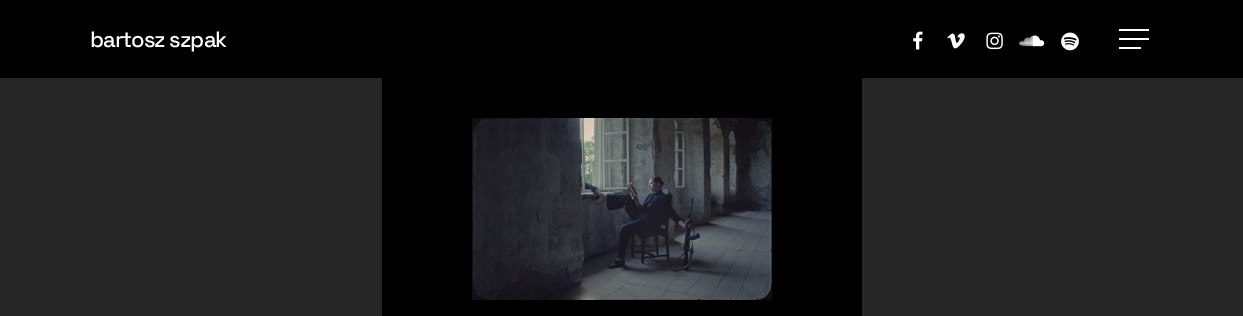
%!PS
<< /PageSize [1243 316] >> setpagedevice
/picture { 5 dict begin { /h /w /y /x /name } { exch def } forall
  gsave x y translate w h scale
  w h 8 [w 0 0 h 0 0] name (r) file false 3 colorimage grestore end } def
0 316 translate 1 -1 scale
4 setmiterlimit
0.149 setgray
0 0 1243 316 rectfill
0 setgray
382 78 480 238 rectfill
0 0 1243 78 rectfill
/SpaceGrotesk-Medium [22 0 0 -22 0 0] selectfont
1 setgray
90 47 moveto -1 0 (bartosz szpak) ashow
(img1.rgb) 913 31 10 19 picture
(img2.rgb) 947 33 18 16 picture
(img3.rgb) 986 32 17 18 picture
(img4.rgb) 1019 35 26 12 picture
(img5.rgb) 1061 32 18 19 picture
1119 29 30 2 rectfill
1119 47 22 2 rectfill
1119 38 30 2 rectfill
(img6.rgb) 472 118 300 182 picture
showpage
